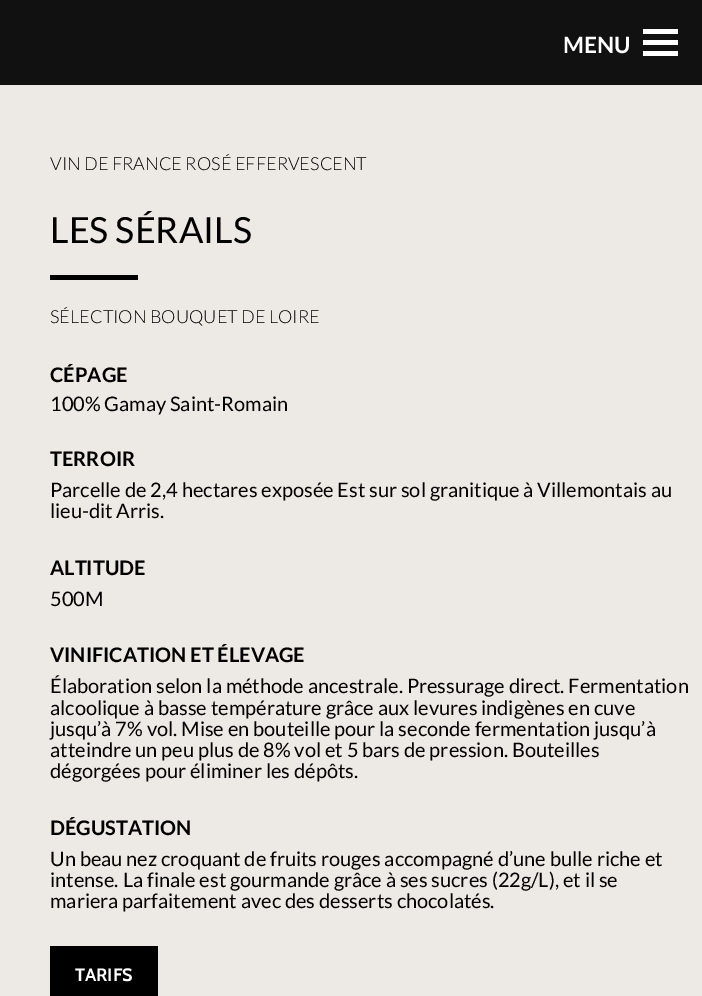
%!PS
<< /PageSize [702 996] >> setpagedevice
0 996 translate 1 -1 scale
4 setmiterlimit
0.929 0.914 0.898 setrgbcolor
0 0 702 996 rectfill
0.067 setgray
0 0 702 85 rectfill
1 setgray
643 29 35 5 rectfill
/Lato-Bold [22.5 0 0 -22.5 0 0] selectfont
563 53 moveto (MENU) show
643 40 35 5 rectfill
643 51 35 5 rectfill
/Lato-Light [18 0 0 -18 0 0] selectfont
0 setgray
50 170 moveto (VIN DE FRANCE ROSÉ EFFERVESCENT) show
/Lato-Regular [36 0 0 -36 0 0] selectfont
50 243 moveto (LES SÉRAILS) show
50 275 88 5 rectfill
/Lato-Light [18 0 0 -18 0 0] selectfont
50 323 moveto (SÉLECTION BOUQUET DE LOIRE) show
/Lato-Bold [20 0 0 -20 0 0] selectfont
50 382 moveto (CÉPAGE) show
/Lato-Regular [20 0 0 -20 0 0] selectfont
50 411 moveto (100% Gamay Saint-Romain) show
/Lato-Bold [20 0 0 -20 0 0] selectfont
50 466 moveto (TERROIR) show
/Lato-Regular [20 0 0 -20 0 0] selectfont
50 497 moveto (Parcelle de 2,4 hectares exposée Est sur sol granitique à Villemontais au) show
50 518 moveto (lieu-dit Arris.) show
/Lato-Bold [20 0 0 -20 0 0] selectfont
50 575 moveto (ALTITUDE) show
/Lato-Regular [20 0 0 -20 0 0] selectfont
50 606 moveto (500M) show
/Lato-Bold [20 0 0 -20 0 0] selectfont
50 662 moveto (VINIFICATION ET ÉLEVAGE) show
/Lato-Regular [20 0 0 -20 0 0] selectfont
50 693 moveto (Élaboration selon la méthode ancestrale. Pressurage direct. Fermentation) show
50 715 moveto (alcoolique à basse température grâce aux levures indigènes en cuve) show
50 736 moveto (jusqu’à 7% vol. Mise en bouteille pour la seconde fermentation jusqu’à) show
50 757 moveto (atteindre un peu plus de 8% vol et 5 bars de pression. Bouteilles) show
50 778 moveto (dégorgées pour éliminer les dépôts.) show
/Lato-Bold [20 0 0 -20 0 0] selectfont
50 835 moveto (DÉGUSTATION) show
/Lato-Regular [20 0 0 -20 0 0] selectfont
50 866 moveto (Un beau nez croquant de fruits rouges accompagné d’une bulle riche et) show
50 887 moveto (intense. La finale est gourmande grâce à ses sucres \(22g/L\), et il se) show
50 908 moveto (mariera parfaitement avec des desserts chocolatés.) show
50 946 108 50 rectfill
/Cabin-Bold [18 0 0 -18 0 0] selectfont
1 setgray
75 981 moveto (TARIFS) show
showpage
